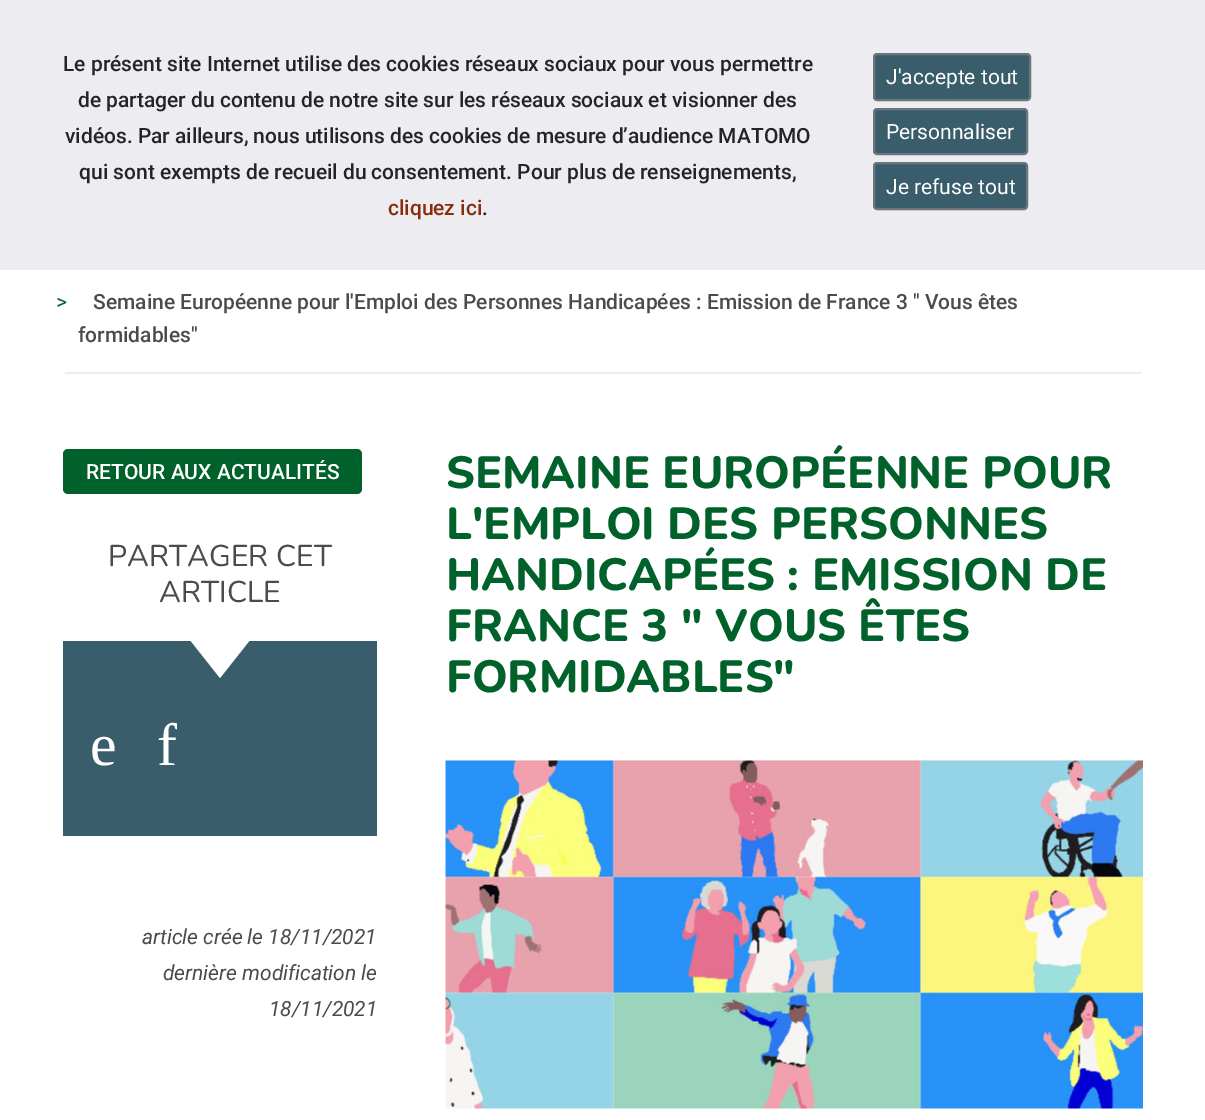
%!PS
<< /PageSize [1205 1120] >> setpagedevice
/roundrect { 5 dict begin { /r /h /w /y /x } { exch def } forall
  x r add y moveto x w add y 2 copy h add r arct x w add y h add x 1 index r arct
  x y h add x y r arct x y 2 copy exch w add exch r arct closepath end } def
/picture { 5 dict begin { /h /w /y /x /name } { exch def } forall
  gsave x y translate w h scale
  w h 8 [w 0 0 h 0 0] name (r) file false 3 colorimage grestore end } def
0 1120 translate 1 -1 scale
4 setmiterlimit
1 setgray
0 0 1205 1120 rectfill
0.929 0.925 0.945 setrgbcolor
0 0 1205 270 rectfill
/Roboto-Medium [21 0 0 -21 0 0] selectfont
0.129 0.145 0.161 setrgbcolor
63 71 moveto (Le présent site Internet utilise des cookies réseaux sociaux pour vous permettre) show
78 107 moveto (de partager du contenu de notre site sur les réseaux sociaux et visionner des) show
65 143 moveto (vidéos. Par ailleurs, nous utilisons des cookies de mesure d’audience MATOMO) show
79 179 moveto (qui sont exempts de recueil du consentement. Pour plus de renseignements,) show
0.529 0.173 0.051 setrgbcolor
388 215 moveto (cliquez ici) show
0.129 0.145 0.161 setrgbcolor
482 215 moveto (.) show
0.224 0.365 0.416 setrgbcolor
874 54 156 46 3 roundrect gsave fill grestore
0.424 0.459 0.49 setrgbcolor
2 setlinewidth
stroke
/Roboto-Regular [21 0 0 -21 0 0] selectfont
1 setgray
886 84 moveto (J'accepte tout) show
0.224 0.365 0.416 setrgbcolor
874 109 153 45 3 roundrect gsave fill grestore
0.424 0.459 0.49 setrgbcolor
stroke
1 setgray
886 139 moveto (Personnaliser) show
0.224 0.365 0.416 setrgbcolor
874 163 153 46 3 roundrect gsave fill grestore
0.424 0.459 0.49 setrgbcolor
stroke
1 setgray
886 194 moveto (Je refuse tout) show
0.929 0.925 0.945 setrgbcolor
65 372 1077 2 rectfill
0 0.38 0.165 setrgbcolor
56 309 moveto (>) show
/Roboto-Medium [21 0 0 -21 0 0] selectfont
0.294 setgray
93 309 moveto (Semaine Européenne pour l'Emploi des Personnes Handicapées : Emission de France 3 " Vous êtes) show
78 342 moveto (formidables") show
0 0.38 0.165 setrgbcolor
63 449 299 45 5 roundrect fill
1 setgray
86 479 moveto (RETOUR AUX ACTUALITÉS) show
/Nunito-Regular [30 0 0 -30 0 0] selectfont
0.294 setgray
108 566 moveto (PARTAGER CET) show
159 602 moveto (ARTICLE) show
0.224 0.365 0.416 setrgbcolor
63 641 314 195 rectfill
1 setgray
newpath 190 640 moveto 250 640 lineto 220 678 lineto closepath fill
/LiberationSerif-Regular [60 0 0 -60 0 0] selectfont
90 765 moveto (e) show
157 765 moveto (f) show
/Roboto-Italic [21 0 0 -21 0 0] selectfont
0.294 setgray
142 944 moveto (article crée le 18/11/2021) show
163 980 moveto (dernière modification le) show
269 1016 moveto (18/11/2021) show
/Nunito-ExtraBold [45 0 0 -45 0 0] selectfont
0 0.38 0.165 setrgbcolor
446 488 moveto (SEMAINE EUROPÉENNE POUR) show
446 539 moveto (L'EMPLOI DES PERSONNES) show
446 590 moveto (HANDICAPÉES : EMISSION DE) show
446 641 moveto (FRANCE 3 " VOUS ÊTES) show
446 692 moveto (FORMIDABLES") show
(img1.rgb) 445 760 698 349 picture
showpage
